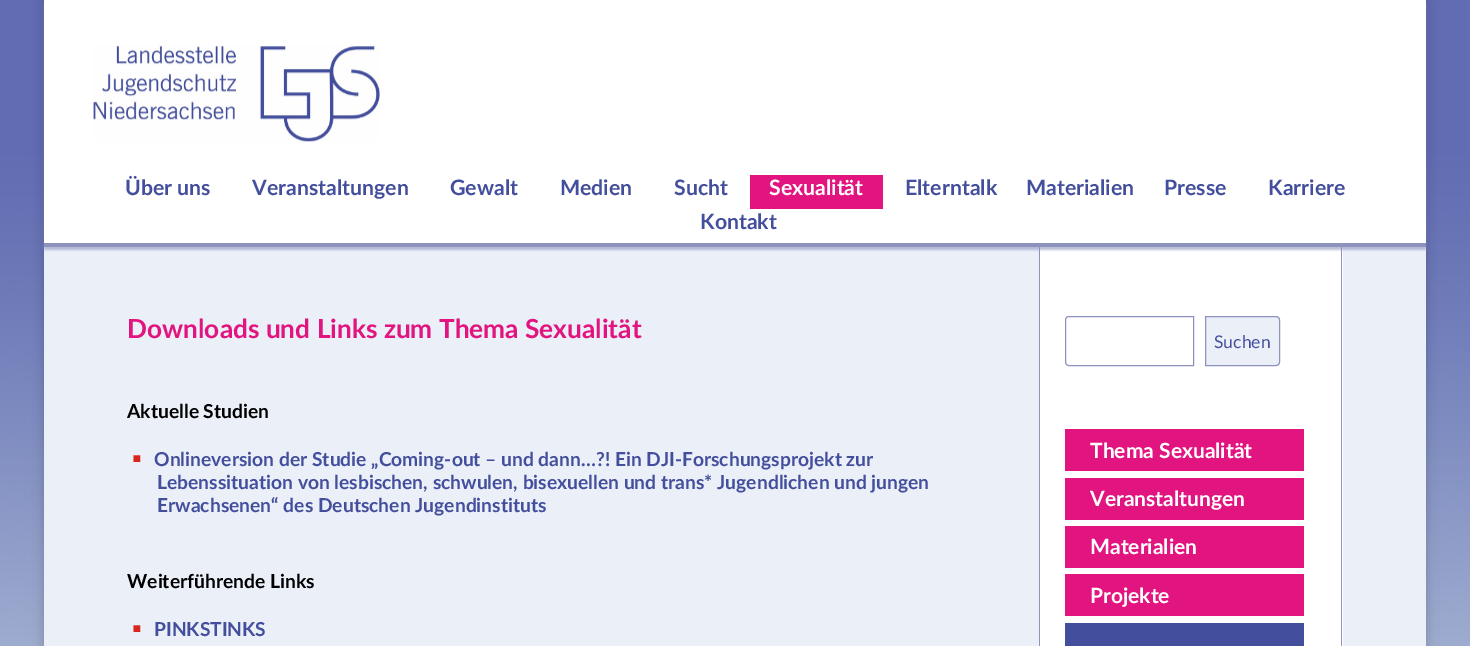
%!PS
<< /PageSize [1470 646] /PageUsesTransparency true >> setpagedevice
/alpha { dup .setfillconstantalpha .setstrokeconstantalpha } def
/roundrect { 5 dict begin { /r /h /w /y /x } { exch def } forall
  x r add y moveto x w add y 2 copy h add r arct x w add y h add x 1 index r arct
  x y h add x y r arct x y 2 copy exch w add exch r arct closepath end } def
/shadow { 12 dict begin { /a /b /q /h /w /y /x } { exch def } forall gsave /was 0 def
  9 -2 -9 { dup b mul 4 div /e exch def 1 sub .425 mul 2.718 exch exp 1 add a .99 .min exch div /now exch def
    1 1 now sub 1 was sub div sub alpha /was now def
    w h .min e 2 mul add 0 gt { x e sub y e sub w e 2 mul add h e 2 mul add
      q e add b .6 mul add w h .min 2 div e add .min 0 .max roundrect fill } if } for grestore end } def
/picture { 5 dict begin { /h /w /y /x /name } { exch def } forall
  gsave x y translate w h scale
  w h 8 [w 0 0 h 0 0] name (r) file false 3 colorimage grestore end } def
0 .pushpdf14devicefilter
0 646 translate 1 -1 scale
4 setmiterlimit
1 setgray
0 0 1470 646 rectfill
(img1.rgb) 0 0 1470 646 picture
0 setgray
44 0 1382 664 0 6 0.2 shadow
0.918 0.937 0.973 setrgbcolor
44 247 1382 399 rectfill
1 setgray
1040 247 303 399 rectfill
0.557 0.576 0.745 setrgbcolor
1341 239 1 407 rectfill
1039 239 1 407 rectfill
44 4 1382 246 0 1 0.6 shadow
1 setgray
44 0 1382 243 rectfill
0.557 0.576 0.745 setrgbcolor
44 243 1382 4 rectfill
(img2.rgb) 93 45 287 97 picture
/Lato-Bold [21.25 0 0 -21.25 0 0] selectfont
0.263 0.306 0.612 setrgbcolor
125 195 moveto (Über uns) show
252 195 moveto (Veranstaltungen) show
450 195 moveto (Gewalt) show
560 195 moveto (Medien) show
674 195 moveto (Sucht) show
0.886 0.078 0.498 setrgbcolor
750 175 133 34 rectfill
1 setgray
769 195 moveto (Sexualität) show
0.263 0.306 0.612 setrgbcolor
905 195 moveto (Elterntalk) show
1026 195 moveto (Materialien) show
1164 195 moveto (Presse) show
1268 195 moveto (Karriere) show
700 229 moveto (Kontakt) show
/Lato-Bold [26.25 0 0 -26.25 0 0] selectfont
0.886 0.078 0.498 setrgbcolor
127 338 moveto (Downloads und Links zum Thema Sexualität) show
/Lato-Bold [19.25 0 0 -19.25 0 0] selectfont
0 setgray
127 418 moveto (Aktuelle Studien) show
/ChironHeiHK-Medium [19.25 0 0 -19.25 0 0] selectfont
0.855 0.145 0.114 setrgbcolor
132 466 moveto (￭) show
/Lato-Bold [19.25 0 0 -19.25 0 0] selectfont
0.263 0.306 0.612 setrgbcolor
154 466 moveto (Onlineversion der Studie „Coming-out – und dann…?! Ein DJI-Forschungsprojekt zur) show
157 489 moveto (Lebenssituation von lesbischen, schwulen, bisexuellen und trans* Jugendlichen und jungen) show
157 512 moveto (Erwachsenen“ des Deutschen Jugendinstituts) show
0 setgray
127 588 moveto (Weiterführende Links) show
/ChironHeiHK-Medium [19.25 0 0 -19.25 0 0] selectfont
0.855 0.145 0.114 setrgbcolor
132 636 moveto (￭) show
/Lato-Bold [19.25 0 0 -19.25 0 0] selectfont
0.263 0.306 0.612 setrgbcolor
154 636 moveto (PINKSTINKS) show
0.557 0.576 0.745 setrgbcolor
newpath 1069 316.5 moveto 1193.5 316.5 lineto 1193.5 365.5 lineto 1069 365.5 lineto 1067 365.5 1065.5 364 1065.5 362 curveto 1065.5 320 lineto 1065.5 318 1067 316.5 1069 316.5 curveto closepath stroke
0.918 0.937 0.973 setrgbcolor
newpath 1205.5 316.5 moveto 1276 316.5 lineto 1278 316.5 1279.5 318 1279.5 320 curveto 1279.5 362 lineto 1279.5 364 1278 365.5 1276 365.5 curveto 1205.5 365.5 lineto closepath gsave fill grestore
0.557 0.576 0.745 setrgbcolor
stroke
/Lato-Regular [17.5 0 0 -17.5 0 0] selectfont
0.263 0.306 0.612 setrgbcolor
1214 348 moveto (Suchen) show
0.886 0.078 0.498 setrgbcolor
1065 429 239 42 rectfill
/Lato-Bold [21 0 0 -21 0 0] selectfont
1 setgray
1090 458 moveto (Thema Sexualität) show
0.886 0.078 0.498 setrgbcolor
1065 478 239 42 rectfill
1 setgray
1090 506 moveto (Veranstaltungen) show
0.886 0.078 0.498 setrgbcolor
1065 526 239 42 rectfill
1 setgray
1090 554 moveto (Materialien) show
0.886 0.078 0.498 setrgbcolor
1065 574 239 42 rectfill
1 setgray
1090 603 moveto (Projekte) show
0.263 0.306 0.612 setrgbcolor
1065 623 239 23 rectfill
.poppdf14devicefilter showpage
